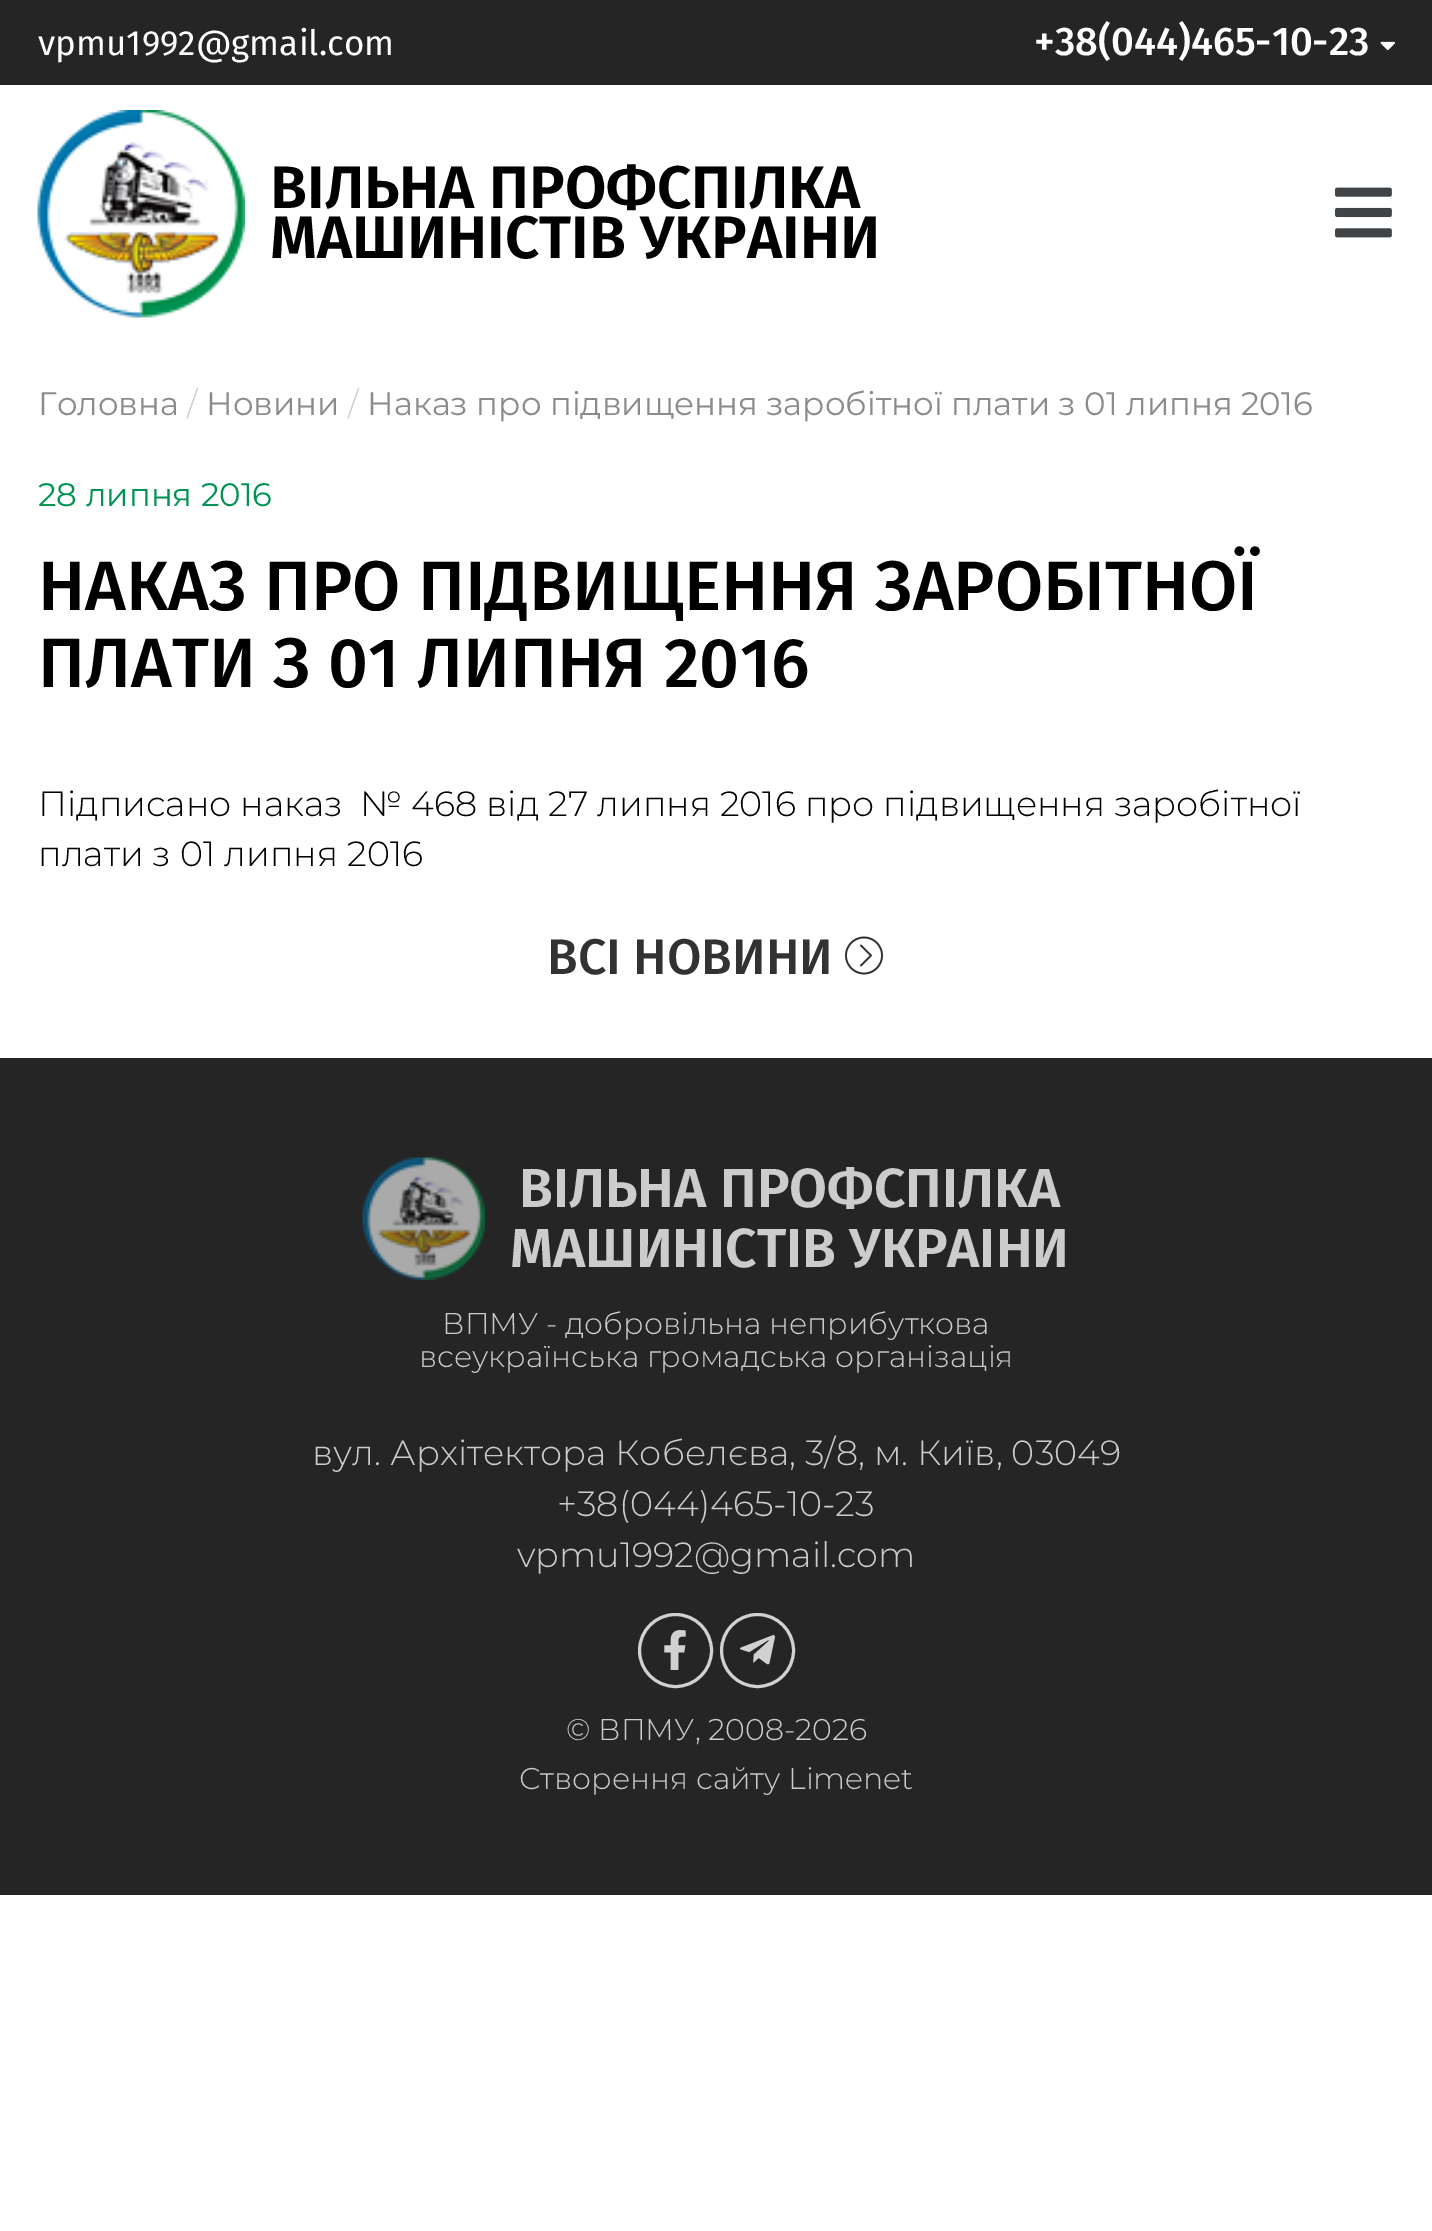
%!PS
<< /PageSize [1432 2231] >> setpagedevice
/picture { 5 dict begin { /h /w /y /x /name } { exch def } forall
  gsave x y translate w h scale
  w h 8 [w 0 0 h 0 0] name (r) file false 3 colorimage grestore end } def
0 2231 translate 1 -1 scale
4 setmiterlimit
1 setgray
0 0 1432 2231 rectfill
0.145 setgray
0 0 1432 85 rectfill
/FiraSans-Regular [35 0 0 -35 0 0] selectfont
1 setgray
38 55 moveto (vpmu1992@gmail.com) show
/FiraSans-Medium [40 0 0 -40 0 0] selectfont
1034 55 moveto (+38\(044\)465-10-23) show
(img1.rgb) 1380 41 15 10 picture
(img2.rgb) 37 110 208 208 picture
/FiraSans-SemiBold [60 0 0 -60 0 0] selectfont
0 setgray
270 208 moveto (ВІЛЬНА ПРОФСПІЛКА) show
270 258 moveto (МАШИНІСТІВ УКРАІНИ) show
(img3.rgb) 1335 187 57 51 picture
/Montserrat-Regular [32.5 0 0 -32.5 0 0] selectfont
0.549 0.545 0.545 setrgbcolor
38 415 moveto (Головна) show
/Montserrat-Light [32.5 0 0 -32.5 0 0] selectfont
0.8 setgray
187 415 moveto (/) show
/Montserrat-Regular [32.5 0 0 -32.5 0 0] selectfont
0.549 0.545 0.545 setrgbcolor
206 415 moveto (Новини) show
/Montserrat-Light [32.5 0 0 -32.5 0 0] selectfont
0.8 setgray
348 415 moveto (/) show
/Montserrat-Regular [32.5 0 0 -32.5 0 0] selectfont
0.549 0.545 0.545 setrgbcolor
367 415 moveto (Наказ про підвищення заробітної плати з 01 липня 2016) show
0.004 0.576 0.322 setrgbcolor
38 506 moveto (28 липня 2016) show
/FiraSans-Medium [70 0 0 -70 0 0] selectfont
0 setgray
38 610 moveto (НАКАЗ ПРО ПІДВИЩЕННЯ ЗАРОБІТНОЇ) show
38 687 moveto (ПЛАТИ З 01 ЛИПНЯ 2016) show
/Montserrat-Light [35 0 0 -35 0 0] selectfont
38 816 moveto (Підписано наказ  № 468 від 27 липня 2016 про підвищення заробітної) show
38 866 moveto (плати з 01 липня 2016) show
/FiraSans-Medium [50 0 0 -50 0 0] selectfont
0.196 setgray
547 974 moveto (ВСІ НОВИНИ) show
(img4.rgb) 845 936 38 39 picture
0.145 setgray
0 1058 1432 837 rectfill
(img5.rgb) 362 1157 123 123 picture
/FiraSans-SemiBold [55 0 0 -55 0 0] selectfont
0.8 setgray
519 1207 moveto (ВІЛЬНА ПРОФСПІЛКА) show
510 1267 moveto (МАШИНІСТІВ УКРАІНИ) show
/Montserrat-Light [30 0 0 -30 0 0] selectfont
442 1334 moveto (ВПМУ - добровільна неприбуткова) show
419 1367 moveto (всеукраїнська громадська організація) show
/Montserrat-Light [35 0 0 -35 0 0] selectfont
312 1465 moveto (вул. Архітектора Кобелєва, 3/8, м. Київ, 03049) show
557 1516 moveto (+38\(044\)465-10-23) show
517 1567 moveto (vpmu1992@gmail.com) show
0.82 setgray
3 setlinewidth
newpath 675.5 1650.5 36 0 360 arc closepath stroke
(img6.rgb) 664 1630 22 40 picture
newpath 757.5 1650.5 36 0 360 arc closepath stroke
(img7.rgb) 740 1635 35 30 picture
/Montserrat-Light [30 0 0 -30 0 0] selectfont
0.8 setgray
566 1740 moveto (© ВПМУ, 2008-2026) show
519 1789 moveto (Створення сайту Limenet) show
showpage
